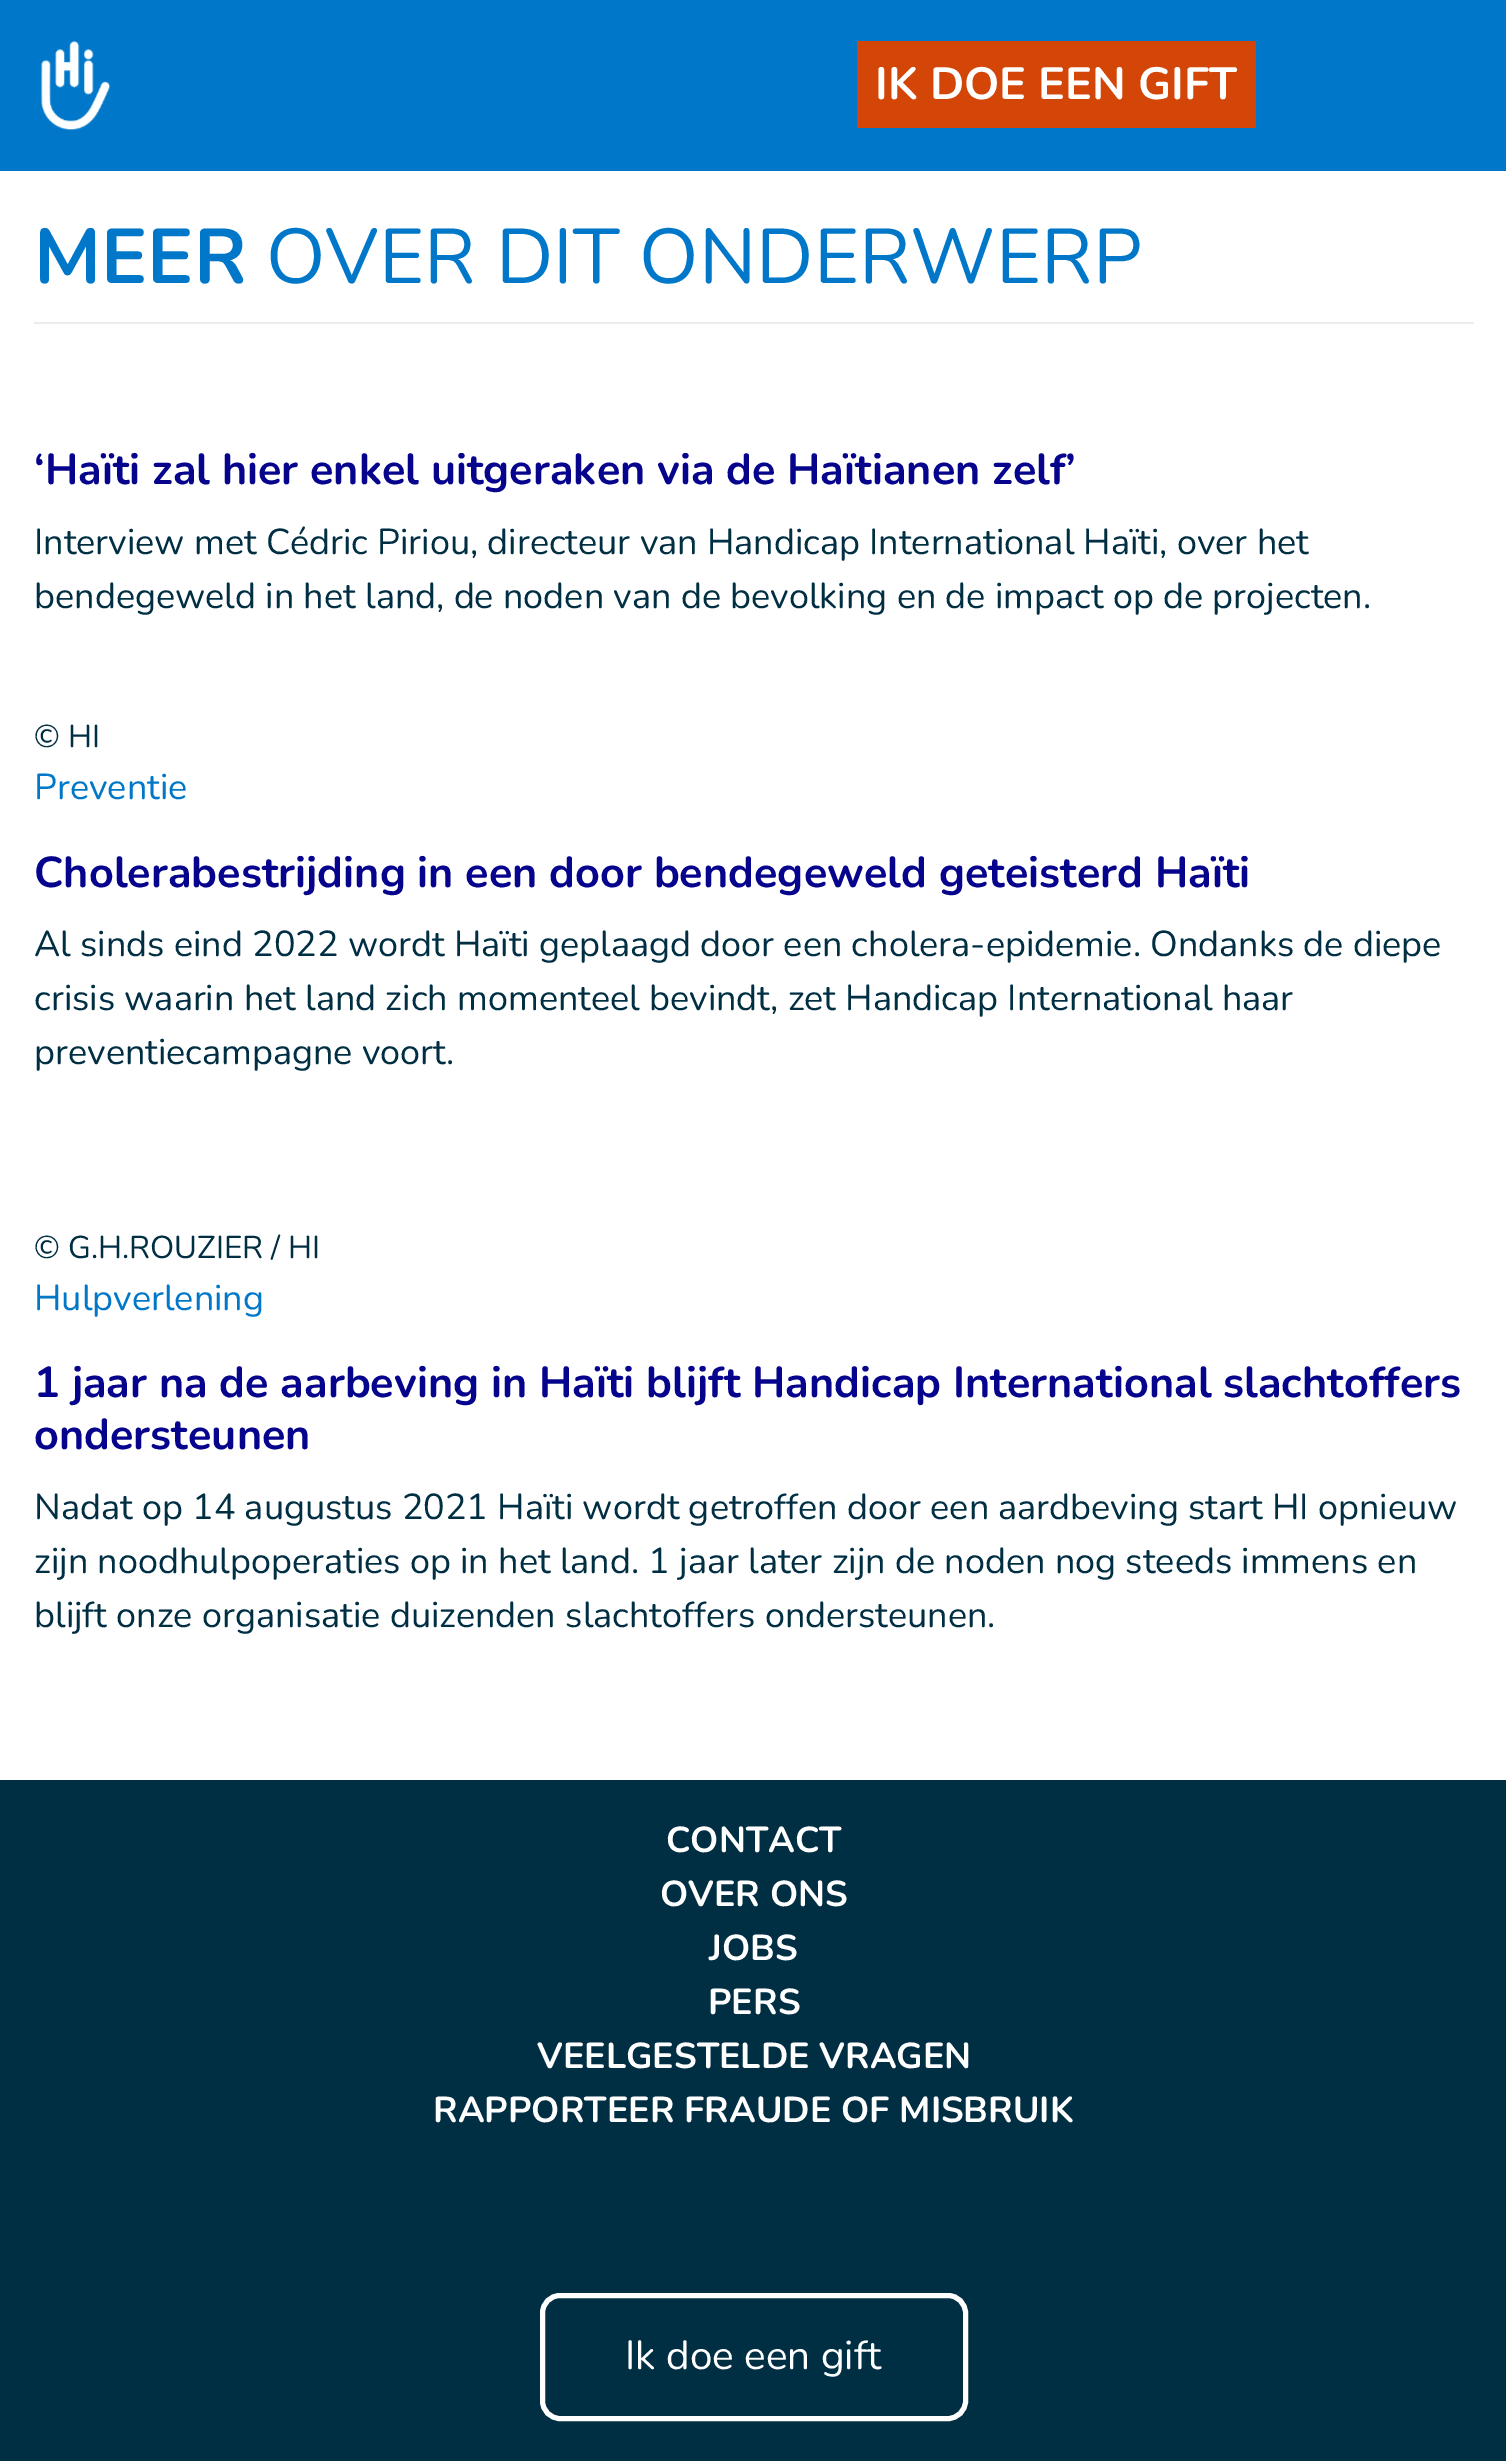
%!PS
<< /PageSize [1506 2461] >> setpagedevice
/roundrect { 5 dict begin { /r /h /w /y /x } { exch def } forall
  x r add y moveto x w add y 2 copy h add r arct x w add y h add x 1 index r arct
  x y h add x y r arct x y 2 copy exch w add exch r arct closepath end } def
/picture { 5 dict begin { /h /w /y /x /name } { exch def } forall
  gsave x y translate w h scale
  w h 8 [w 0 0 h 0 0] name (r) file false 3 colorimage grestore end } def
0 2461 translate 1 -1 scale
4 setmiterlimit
1 setgray
0 0 1506 2461 rectfill
0 0.467 0.784 setrgbcolor
0 0 1506 171 rectfill
(img1.rgb) 41 41 70 90 picture
0.827 0.275 0.027 setrgbcolor
857 41 399 87 rectfill
/Nunito-Bold [45 0 0 -45 0 0] selectfont
1 setgray
875 99 moveto (IK DOE EEN GIFT) show
0.925 0.925 0.937 setrgbcolor
34 322 1440 2 rectfill
/Nunito-Bold [77.4 0 0 -77.4 0 0] selectfont
0 0.467 0.784 setrgbcolor
34 283 moveto (MEER) show
/Nunito-Regular [77.4 0 0 -77.4 0 0] selectfont
266 283 moveto (OVER DIT ONDERWERP) show
/Nunito-Bold [43.2 0 0 -43.2 0 0] selectfont
0.024 0.012 0.553 setrgbcolor
34 484 moveto (‘Haïti zal hier enkel uitgeraken via de Haïtianen zelf’) show
/Nunito-Regular [36 0 0 -36 0 0] selectfont
0 0.18 0.263 setrgbcolor
34 554 moveto (Interview met Cédric Piriou, directeur van Handicap International Haïti, over het) show
34 608 moveto (bendegeweld in het land, de noden van de bevolking en de impact op de projecten.) show
/Nunito-Regular [31.5 0 0 -31.5 0 0] selectfont
34 747 moveto (© HI) show
/Nunito-Regular [36 0 0 -36 0 0] selectfont
0 0.467 0.784 setrgbcolor
34 799 moveto (Preventie) show
/Nunito-Bold [43.2 0 0 -43.2 0 0] selectfont
0.024 0.012 0.553 setrgbcolor
34 887 moveto (Cholerabestrijding in een door bendegeweld geteisterd Haïti) show
/Nunito-Regular [36 0 0 -36 0 0] selectfont
0 0.18 0.263 setrgbcolor
34 956 moveto (Al sinds eind 2022 wordt Haïti geplaagd door een cholera-epidemie. Ondanks de diepe) show
34 1010 moveto (crisis waarin het land zich momenteel bevindt, zet Handicap International haar) show
34 1064 moveto (preventiecampagne voort.) show
/Nunito-Regular [31.5 0 0 -31.5 0 0] selectfont
34 1258 moveto (© G.H.ROUZIER / HI) show
/Nunito-Regular [36 0 0 -36 0 0] selectfont
0 0.467 0.784 setrgbcolor
34 1310 moveto (Hulpverlening) show
/Nunito-Bold [43.2 0 0 -43.2 0 0] selectfont
0.024 0.012 0.553 setrgbcolor
34 1397 moveto (1 jaar na de aarbeving in Haïti blijft Handicap International slachtoffers) show
34 1449 moveto (ondersteunen) show
/Nunito-Regular [36 0 0 -36 0 0] selectfont
0 0.18 0.263 setrgbcolor
34 1519 moveto (Nadat op 14 augustus 2021 Haïti wordt getroffen door een aardbeving start HI opnieuw) show
34 1573 moveto (zijn noodhulpoperaties op in het land. 1 jaar later zijn de noden nog steeds immens en) show
34 1627 moveto (blijft onze organisatie duizenden slachtoffers ondersteunen.) show
0 1780 1506 681 rectfill
/Nunito-Bold [36 0 0 -36 0 0] selectfont
1 setgray
666 1852 moveto (CONTACT) show
660 1906 moveto (OVER ONS) show
709 1960 moveto (JOBS) show
708 2014 moveto (PERS) show
537 2068 moveto (VEELGESTELDE VRAGEN) show
433 2122 moveto (RAPPORTEER FRAUDE OF MISBRUIK) show
5 setlinewidth
542.5 2295.5 423 123 17.5 roundrect stroke
/Nunito-Regular [40.5 0 0 -40.5 0 0] selectfont
625 2369 moveto (Ik doe een gift) show
showpage
